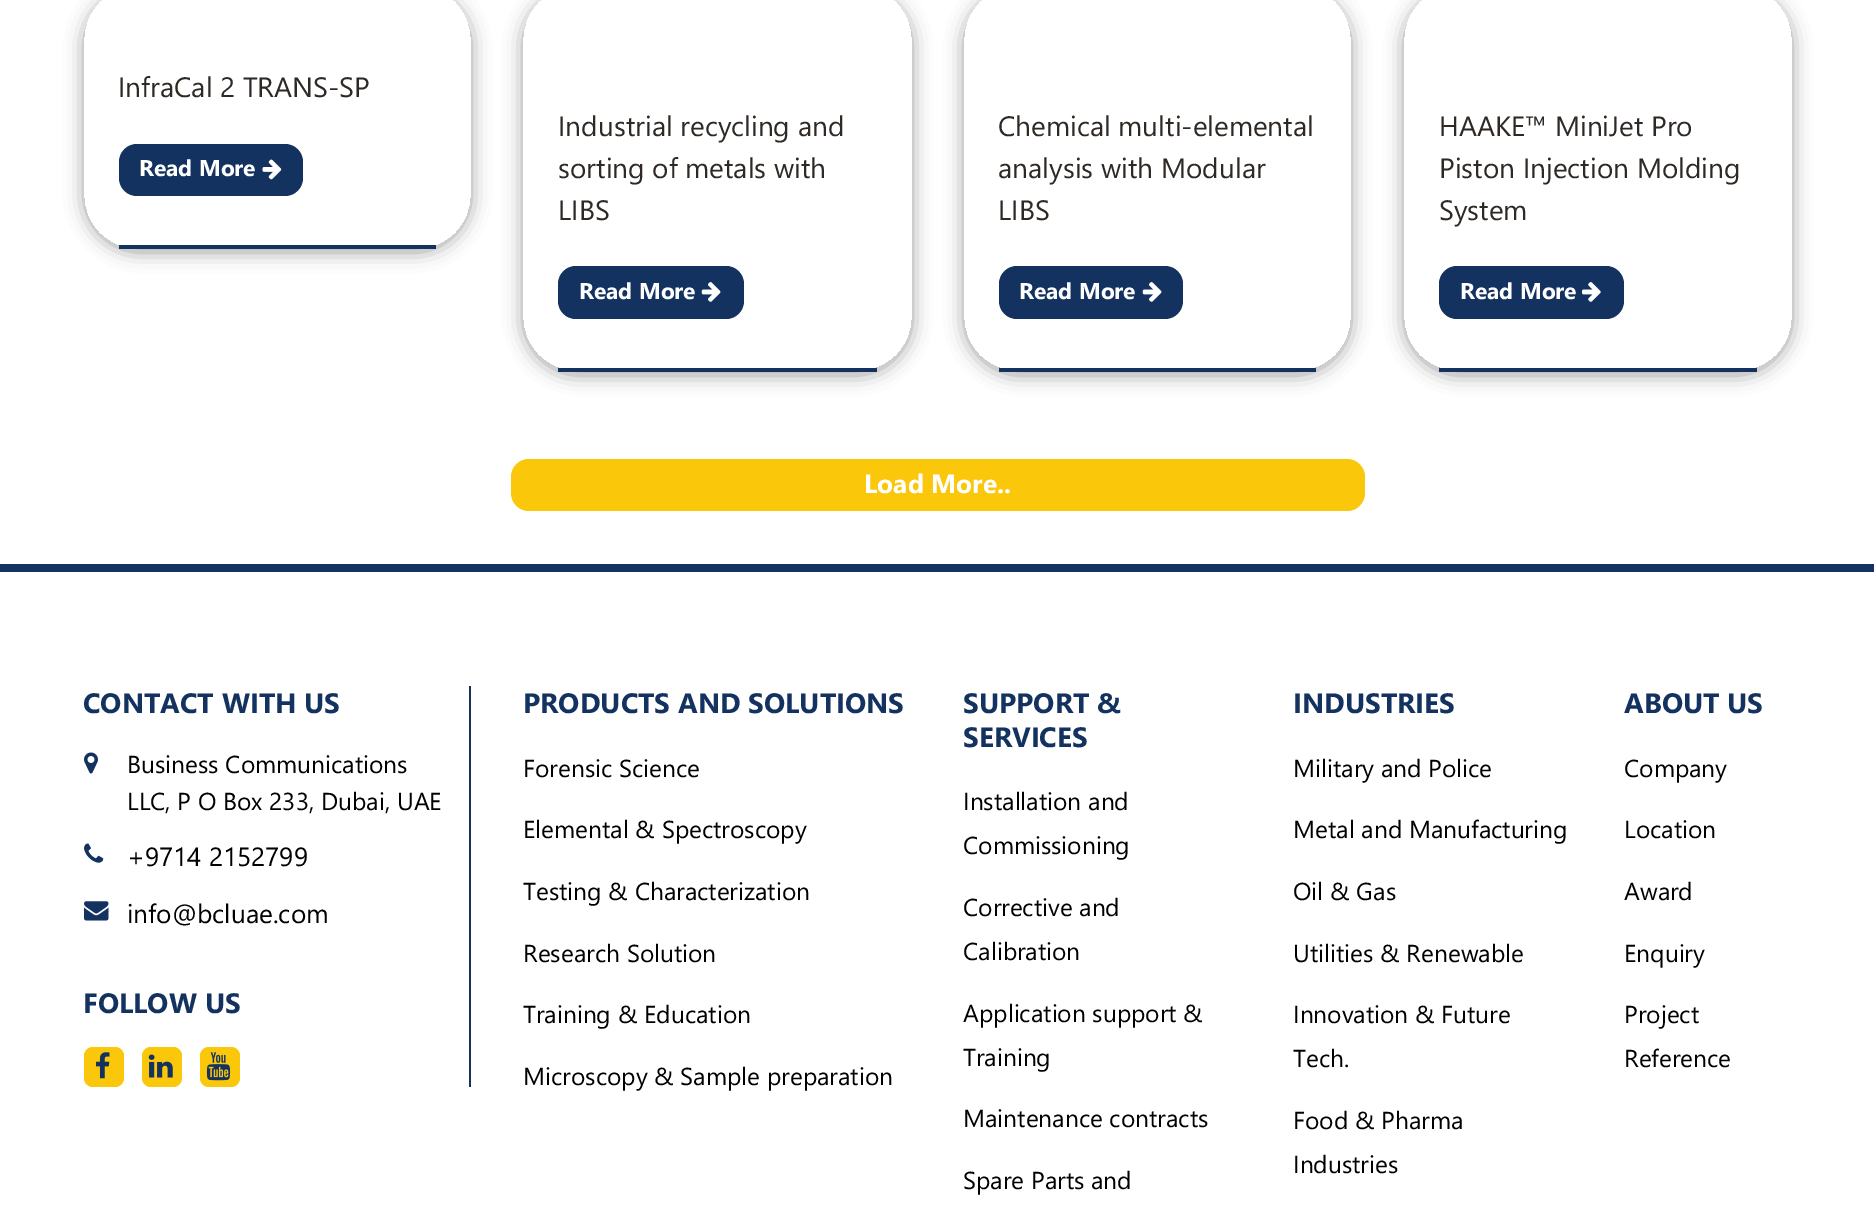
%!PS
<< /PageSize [1874 1208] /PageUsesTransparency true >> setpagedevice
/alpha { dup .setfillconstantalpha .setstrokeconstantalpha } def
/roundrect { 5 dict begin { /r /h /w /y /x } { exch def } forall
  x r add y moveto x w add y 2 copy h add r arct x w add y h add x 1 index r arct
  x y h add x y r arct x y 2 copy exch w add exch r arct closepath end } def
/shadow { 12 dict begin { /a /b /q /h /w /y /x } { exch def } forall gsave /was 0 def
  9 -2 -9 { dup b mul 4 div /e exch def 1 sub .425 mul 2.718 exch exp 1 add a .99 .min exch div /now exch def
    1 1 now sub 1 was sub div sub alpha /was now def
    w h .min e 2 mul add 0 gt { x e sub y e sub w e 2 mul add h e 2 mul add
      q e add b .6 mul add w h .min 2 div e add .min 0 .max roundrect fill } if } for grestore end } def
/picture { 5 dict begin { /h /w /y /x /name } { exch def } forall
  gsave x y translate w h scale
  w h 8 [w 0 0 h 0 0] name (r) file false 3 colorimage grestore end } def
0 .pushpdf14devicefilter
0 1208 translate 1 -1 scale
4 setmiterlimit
1 setgray
0 0 1874 1208 rectfill
gsave
newpath 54 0 moveto 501 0 lineto 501 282 lineto 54 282 lineto closepath 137 -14 moveto 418 -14 lineto 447.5 -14 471 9.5 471 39 curveto 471 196 lineto 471 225.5 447.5 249 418 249 curveto 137 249 lineto 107.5 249 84 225.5 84 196 curveto 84 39 lineto 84 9.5 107.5 -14 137 -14 curveto closepath eoclip newpath
0.612 setgray
84 -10 387 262 53 9.5 1 shadow
grestore
/SegoeUI-Regular [28 0 0 -28 0 0] selectfont
0.18 0.161 0.145 setrgbcolor
118 97 moveto (InfraCal 2 TRANS-SP) show
0.075 0.196 0.376 setrgbcolor
119 144 184 52 18 roundrect fill
/SegoeUI-Bold [22.75 0 0 -22.75 0 0] selectfont
1 setgray
139 176 moveto (Read More) show
(img1.rgb) 262 159 20 21 picture
0.075 0.196 0.376 setrgbcolor
119 245 317 4 rectfill
gsave
newpath 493 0 moveto 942 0 lineto 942 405 lineto 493 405 lineto closepath 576 -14 moveto 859 -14 lineto 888.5 -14 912 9.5 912 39 curveto 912 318 lineto 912 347.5 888.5 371 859 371 curveto 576 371 lineto 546.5 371 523 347.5 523 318 curveto 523 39 lineto 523 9.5 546.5 -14 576 -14 curveto closepath eoclip newpath
0.612 setgray
523 -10 389 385 53 9.5 1 shadow
grestore
/SegoeUI-Regular [28 0 0 -28 0 0] selectfont
0.18 0.161 0.145 setrgbcolor
558 136 moveto (Industrial recycling and) show
558 178 moveto (sorting of metals with) show
558 220 moveto (LIBS) show
0.075 0.196 0.376 setrgbcolor
558 266 186 53 18 roundrect fill
/SegoeUI-Bold [22.75 0 0 -22.75 0 0] selectfont
1 setgray
579 299 moveto (Read More) show
(img2.rgb) 701 282 20 20 picture
0.075 0.196 0.376 setrgbcolor
558 368 319 4 rectfill
gsave
newpath 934 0 moveto 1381 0 lineto 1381 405 lineto 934 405 lineto closepath 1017 -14 moveto 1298 -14 lineto 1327.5 -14 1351 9.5 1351 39 curveto 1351 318 lineto 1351 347.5 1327.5 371 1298 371 curveto 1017 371 lineto 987.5 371 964 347.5 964 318 curveto 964 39 lineto 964 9.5 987.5 -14 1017 -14 curveto closepath eoclip newpath
0.612 setgray
964 -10 387 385 53 9.5 1 shadow
grestore
/SegoeUI-Regular [28 0 0 -28 0 0] selectfont
0.18 0.161 0.145 setrgbcolor
998 136 moveto (Chemical multi-elemental) show
998 178 moveto (analysis with Modular) show
998 220 moveto (LIBS) show
0.075 0.196 0.376 setrgbcolor
999 266 184 53 18 roundrect fill
/SegoeUI-Bold [22.75 0 0 -22.75 0 0] selectfont
1 setgray
1019 299 moveto (Read More) show
(img2.rgb) 1142 282 20 20 picture
0.075 0.196 0.376 setrgbcolor
999 368 317 4 rectfill
gsave
newpath 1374 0 moveto 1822 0 lineto 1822 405 lineto 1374 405 lineto closepath 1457 -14 moveto 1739 -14 lineto 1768.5 -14 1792 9.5 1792 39 curveto 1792 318 lineto 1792 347.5 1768.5 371 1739 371 curveto 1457 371 lineto 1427.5 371 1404 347.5 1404 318 curveto 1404 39 lineto 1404 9.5 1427.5 -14 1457 -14 curveto closepath eoclip newpath
0.612 setgray
1404 -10 388 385 53 9.5 1 shadow
grestore
/SegoeUI-Regular [28 0 0 -28 0 0] selectfont
0.18 0.161 0.145 setrgbcolor
1439 136 moveto (HAAKE™ MiniJet Pro) show
1439 178 moveto (Piston Injection Molding) show
1439 220 moveto (System) show
0.075 0.196 0.376 setrgbcolor
1439 266 185 53 18 roundrect fill
/SegoeUI-Bold [22.75 0 0 -22.75 0 0] selectfont
1 setgray
1460 299 moveto (Read More) show
(img3.rgb) 1582 282 19 20 picture
0.075 0.196 0.376 setrgbcolor
1439 368 318 4 rectfill
0.98 0.78 0.039 setrgbcolor
511 459 854 52 18 roundrect fill
/SegoeUI-Bold [26.25 0 0 -26.25 0 0] selectfont
1 setgray
864 493 moveto (Load More..) show
0.075 0.196 0.376 setrgbcolor
0 564 1874 8 rectfill
469 686 2 401 rectfill
/SegoeUI-Bold [28 0 0 -28 0 0] selectfont
83 713 moveto (CONTACT WITH US) show
(img4.rgb) 84 752 14 22 picture
/SegoeUI-Regular [24.5 0 0 -24.5 0 0] selectfont
0 setgray
127 773 moveto (Business Communications) show
127 810 moveto (LLC, P O Box 233, Dubai, UAE) show
(img5.rgb) 84 843 20 20 picture
/SegoeUI-Regular [26.25 0 0 -26.25 0 0] selectfont
127 866 moveto (+9714 2152799) show
(img6.rgb) 84 901 25 20 picture
127 923 moveto (info@bcluae.com) show
/SegoeUI-Bold [28 0 0 -28 0 0] selectfont
0.075 0.196 0.376 setrgbcolor
83 1013 moveto (FOLLOW US) show
0.98 0.78 0.039 setrgbcolor
84 1047 40 40 9 roundrect fill
(img7.rgb) 96 1052 14 27 picture
142 1047 40 40 9 roundrect fill
(img8.rgb) 148 1054 25 24 picture
200 1047 40 40 9 roundrect fill
(img9.rgb) 206 1052 25 29 picture
0.075 0.196 0.376 setrgbcolor
523 713 moveto (PRODUCTS AND SOLUTIONS) show
/SegoeUI-Regular [24.5 0 0 -24.5 0 0] selectfont
0 setgray
523 777 moveto (Forensic Science) show
523 838 moveto (Elemental & Spectroscopy) show
523 900 moveto (Testing & Characterization) show
523 962 moveto (Research Solution) show
523 1023 moveto (Training & Education) show
523 1085 moveto (Microscopy & Sample preparation) show
/SegoeUI-Bold [28 0 0 -28 0 0] selectfont
0.075 0.196 0.376 setrgbcolor
963 713 moveto (SUPPORT &) show
963 747 moveto (SERVICES) show
/SegoeUI-Regular [24.5 0 0 -24.5 0 0] selectfont
0 setgray
963 810 moveto (Installation and) show
963 854 moveto (Commissioning) show
963 916 moveto (Corrective and) show
963 960 moveto (Calibration) show
963 1022 moveto (Application support &) show
963 1066 moveto (Training) show
963 1127 moveto (Maintenance contracts) show
963 1189 moveto (Spare Parts and) show
/SegoeUI-Bold [28 0 0 -28 0 0] selectfont
0.075 0.196 0.376 setrgbcolor
1293 713 moveto (INDUSTRIES) show
/SegoeUI-Regular [24.5 0 0 -24.5 0 0] selectfont
0 setgray
1293 777 moveto (Military and Police) show
1293 838 moveto (Metal and Manufacturing) show
1293 900 moveto (Oil & Gas) show
1293 962 moveto (Utilities & Renewable) show
1293 1023 moveto (Innovation & Future) show
1293 1067 moveto (Tech.) show
1293 1129 moveto (Food & Pharma) show
1293 1173 moveto (Industries) show
/SegoeUI-Bold [28 0 0 -28 0 0] selectfont
0.075 0.196 0.376 setrgbcolor
1624 713 moveto (ABOUT US) show
/SegoeUI-Regular [24.5 0 0 -24.5 0 0] selectfont
0 setgray
1624 777 moveto (Company) show
1624 838 moveto (Location) show
1624 900 moveto (Award) show
1624 962 moveto (Enquiry) show
1624 1023 moveto (Project) show
1624 1067 moveto (Reference) show
.poppdf14devicefilter showpage
